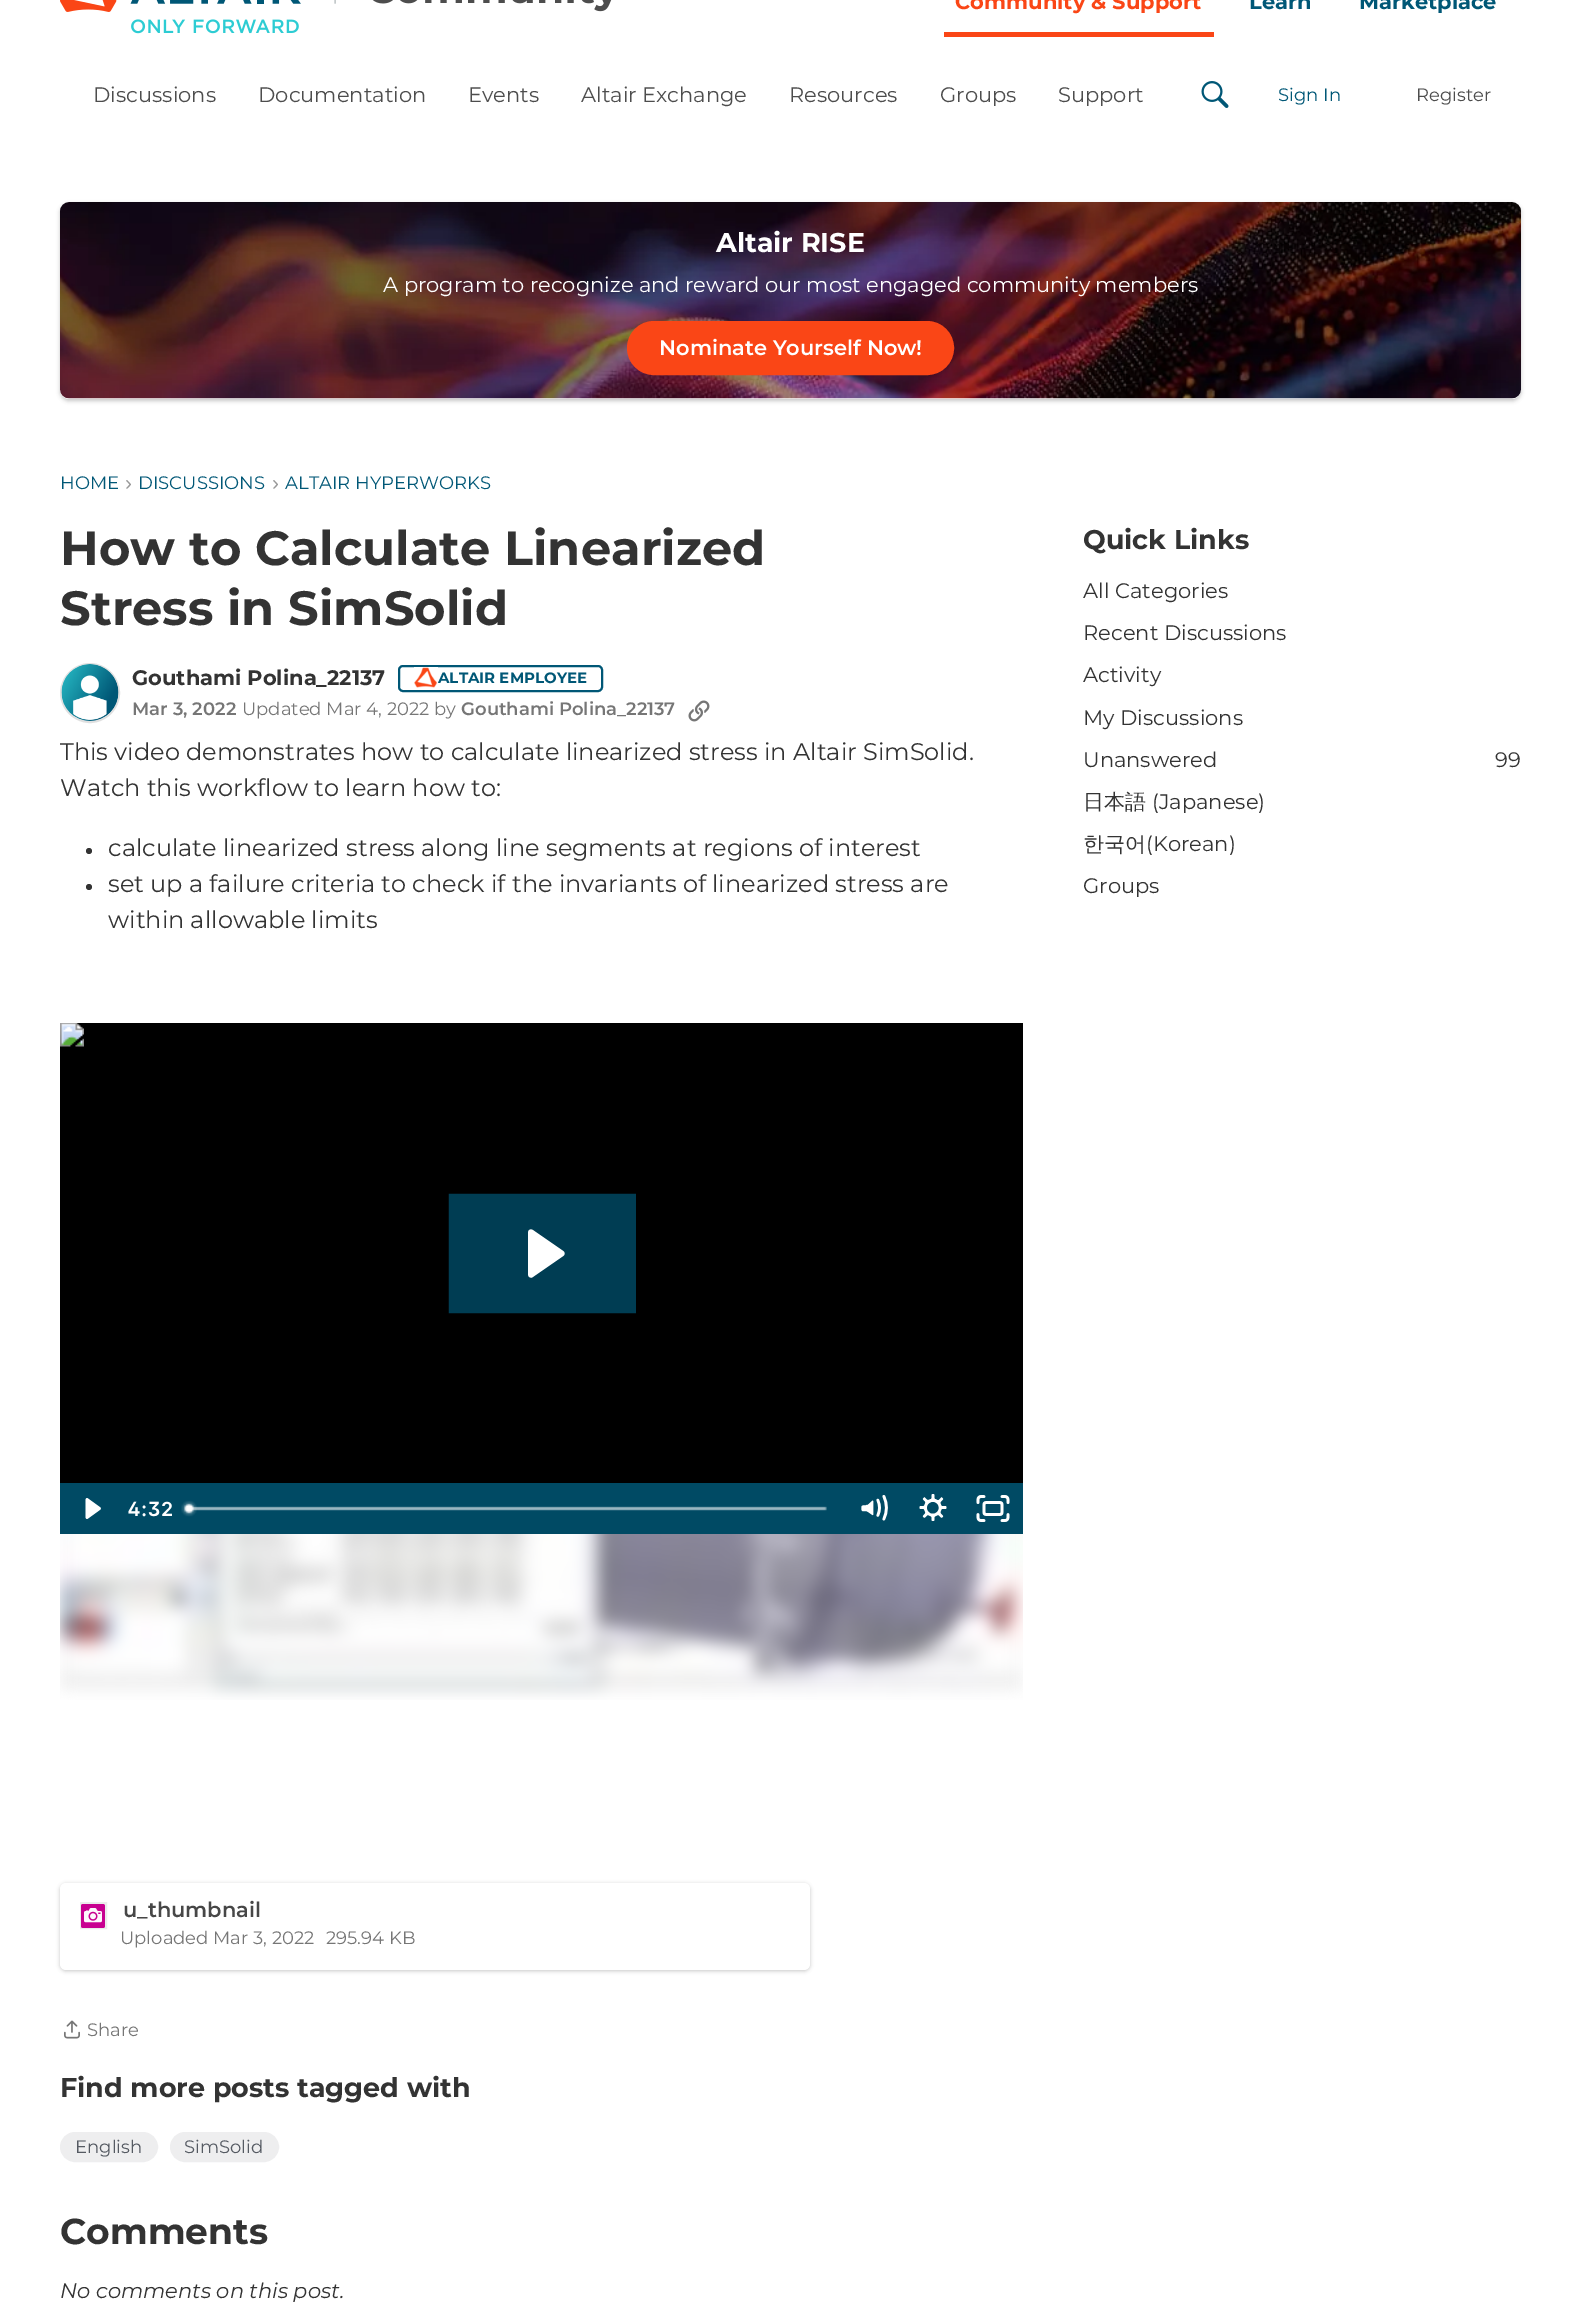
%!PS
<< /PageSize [1580 2321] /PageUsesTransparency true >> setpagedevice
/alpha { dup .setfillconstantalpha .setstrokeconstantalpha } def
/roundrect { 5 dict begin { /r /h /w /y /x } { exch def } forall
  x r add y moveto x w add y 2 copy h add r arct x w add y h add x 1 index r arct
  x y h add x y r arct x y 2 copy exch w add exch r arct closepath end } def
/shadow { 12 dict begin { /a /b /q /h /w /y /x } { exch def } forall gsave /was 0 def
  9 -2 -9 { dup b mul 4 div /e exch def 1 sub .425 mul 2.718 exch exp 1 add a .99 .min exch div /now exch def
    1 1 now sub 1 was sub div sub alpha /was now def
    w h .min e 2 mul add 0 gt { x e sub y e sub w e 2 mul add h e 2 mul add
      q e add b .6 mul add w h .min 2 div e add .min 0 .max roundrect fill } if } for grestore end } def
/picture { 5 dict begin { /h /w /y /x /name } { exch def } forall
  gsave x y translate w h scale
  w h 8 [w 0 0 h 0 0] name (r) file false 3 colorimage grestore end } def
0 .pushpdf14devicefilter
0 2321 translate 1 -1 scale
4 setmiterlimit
1 setgray
0 0 1580 2321 rectfill
(img1.rgb) 60 0 552 34 picture
/Montserrat-Bold [21 0 0 -21 0 0] selectfont
0.98 0.275 0.086 setrgbcolor
955 9 moveto (Community & Support) show
944 32 270 5 rectfill
0 0.341 0.463 setrgbcolor
1249 9 moveto (Learn) show
1359 9 moveto (Marketplace) show
/Montserrat-Regular [21 0 0 -21 0 0] selectfont
0.302 setgray
93 102 moveto (Discussions) show
258 102 moveto (Documentation) show
468 102 moveto (Events) show
581 102 moveto (Altair Exchange) show
789 102 moveto (Resources) show
940 102 moveto (Groups) show
1058 102 moveto (Support) show
(img2.rgb) 1201 81 28 27 picture
/Montserrat-Regular [18 0 0 -18 0 0] selectfont
0 0.341 0.463 setrgbcolor
1278 101 moveto (Sign In) show
0.302 setgray
1416 101 moveto (Register) show
0 setgray
60 204 1461 197 9 2 0.22 shadow
(img3.rgb) 60 202 1461 197 picture
/Montserrat-Bold [27 0 0 -27 0 0] selectfont
1 setgray
716 252 moveto (Altair RISE) show
/Montserrat-Regular [21 0 0 -21 0 0] selectfont
383 292 moveto (A program to recognize and reward our most engaged community members) show
0.98 0.275 0.086 setrgbcolor
628 322 325 52 26 roundrect gsave fill grestore
2 setlinewidth
stroke
/Montserrat-SemiBold [21 0 0 -21 0 0] selectfont
1 setgray
659 355 moveto (Nominate Yourself Now!) show
/Montserrat-Regular [18 0 0 -18 0 0] selectfont
0 0.341 0.463 setrgbcolor
60 489 moveto (HOME) show
/LiberationSans-Regular [21 0 0 -21 0 0] selectfont
0.6 setgray
125 490 moveto (›) show
/Montserrat-Regular [18 0 0 -18 0 0] selectfont
0 0.341 0.463 setrgbcolor
138 489 moveto (DISCUSSIONS) show
/LiberationSans-Regular [21 0 0 -21 0 0] selectfont
0.6 setgray
272 490 moveto (›) show
/Montserrat-Regular [18 0 0 -18 0 0] selectfont
0 0.341 0.463 setrgbcolor
285 489 moveto (ALTAIR HYPERWORKS) show
/Montserrat-Bold [48 0 0 -48 0 0] selectfont
0.2 setgray
60 565 moveto (How to Calculate Linearized) show
60 625 moveto (Stress in SimSolid) show
0.878 setgray
newpath 90 693 29 0 360 arc closepath stroke
(img4.rgb) 61 664 58 57 picture
/Montserrat-Bold [21 0 0 -21 0 0] selectfont
0.2 setgray
132 685 moveto (Gouthami Polina_22137) show
0 0.341 0.463 setrgbcolor
399 666 203 25 4 roundrect stroke
(img5.rgb) 414 667 24 21 picture
/Montserrat-Bold [15 0 0 -15 0 0] selectfont
438 683 moveto (ALTAIR EMPLOYEE) show
/Montserrat-SemiBold [18 0 0 -18 0 0] selectfont
0.463 setgray
132 715 moveto (Mar 3, 2022) show
/Montserrat-Regular [18 0 0 -18 0 0] selectfont
242 715 moveto (Updated Mar 4, 2022 by) show
/Montserrat-SemiBold [18 0 0 -18 0 0] selectfont
461 715 moveto (Gouthami Polina_22137) show
(img6.rgb) 688 700 22 22 picture
/Montserrat-Regular [24 0 0 -24 0 0] selectfont
0.2 setgray
60 760 moveto (This video demonstrates how to calculate linearized stress in Altair SimSolid.) show
60 796 moveto (Watch this workflow to learn how to:) show
newpath 89 851 3 0 360 arc closepath fill
108 856 moveto (calculate linearized stress along line segments at regions of interest) show
newpath 89 887 3 0 360 arc closepath fill
108 892 moveto (set up a failure criteria to check if the invariants of linearized stress are) show
108 928 moveto (within allowable limits) show
(img7.rgb) 60 1023 963 677 picture
0 setgray
60 1884 750 87 6 2 0.22 shadow
1 setgray
60 1883 750 87 6 roundrect fill
0.922 setgray
81 1903 25 25 rectstroke
(img8.rgb) 81 1904 24 24 picture
/Montserrat-SemiBold [21 0 0 -21 0 0] selectfont
0.278 setgray
123 1917 moveto (u_thumbnail) show
/Montserrat-Regular [18 0 0 -18 0 0] selectfont
0.463 setgray
120 1944 moveto (Uploaded Mar 3, 2022) show
326 1944 moveto (295.94 KB) show
(img9.rgb) 64 2020 16 19 picture
87 2036 moveto (Share) show
/Montserrat-Bold [27 0 0 -27 0 0] selectfont
0.2 setgray
60 2097 moveto (Find more posts tagged with) show
0.933 0.933 0.937 setrgbcolor
61 2133 96 28 14 roundrect gsave fill grestore
stroke
/Montserrat-Regular [18 0 0 -18 0 0] selectfont
0.333 0.353 0.384 setrgbcolor
75 2153 moveto (English) show
0.933 0.933 0.937 setrgbcolor
171 2133 107 28 14 roundrect gsave fill grestore
stroke
0.333 0.353 0.384 setrgbcolor
184 2153 moveto (SimSolid) show
/Montserrat-Bold [36 0 0 -36 0 0] selectfont
0.2 setgray
60 2244 moveto (Comments) show
/Montserrat-Italic [21 0 0 -21 0 0] selectfont
60 2298 moveto (No comments on this post.) show
/Montserrat-Bold [27 0 0 -27 0 0] selectfont
1083 549 moveto (Quick Links) show
/Montserrat-Regular [21 0 0 -21 0 0] selectfont
1083 598 moveto (All Categories) show
1083 640 moveto (Recent Discussions) show
1083 682 moveto (Activity) show
1083 725 moveto (My Discussions) show
1083 767 moveto (Unanswered) show
1495 767 moveto (99) show
/WenQuanYiZenHei-Medium [21 0 0 -21 0 0] selectfont
1083 809 moveto (日本語) show
/Montserrat-Regular [21 0 0 -21 0 0] selectfont
1152 809 moveto (\(Japanese\)) show
/WenQuanYiZenHei-Medium [21 0 0 -21 0 0] selectfont
1083 851 moveto (한국어) show
/Montserrat-Regular [21 0 0 -21 0 0] selectfont
1146 851 moveto (\(Korean\)) show
1083 893 moveto (Groups) show
.poppdf14devicefilter showpage
